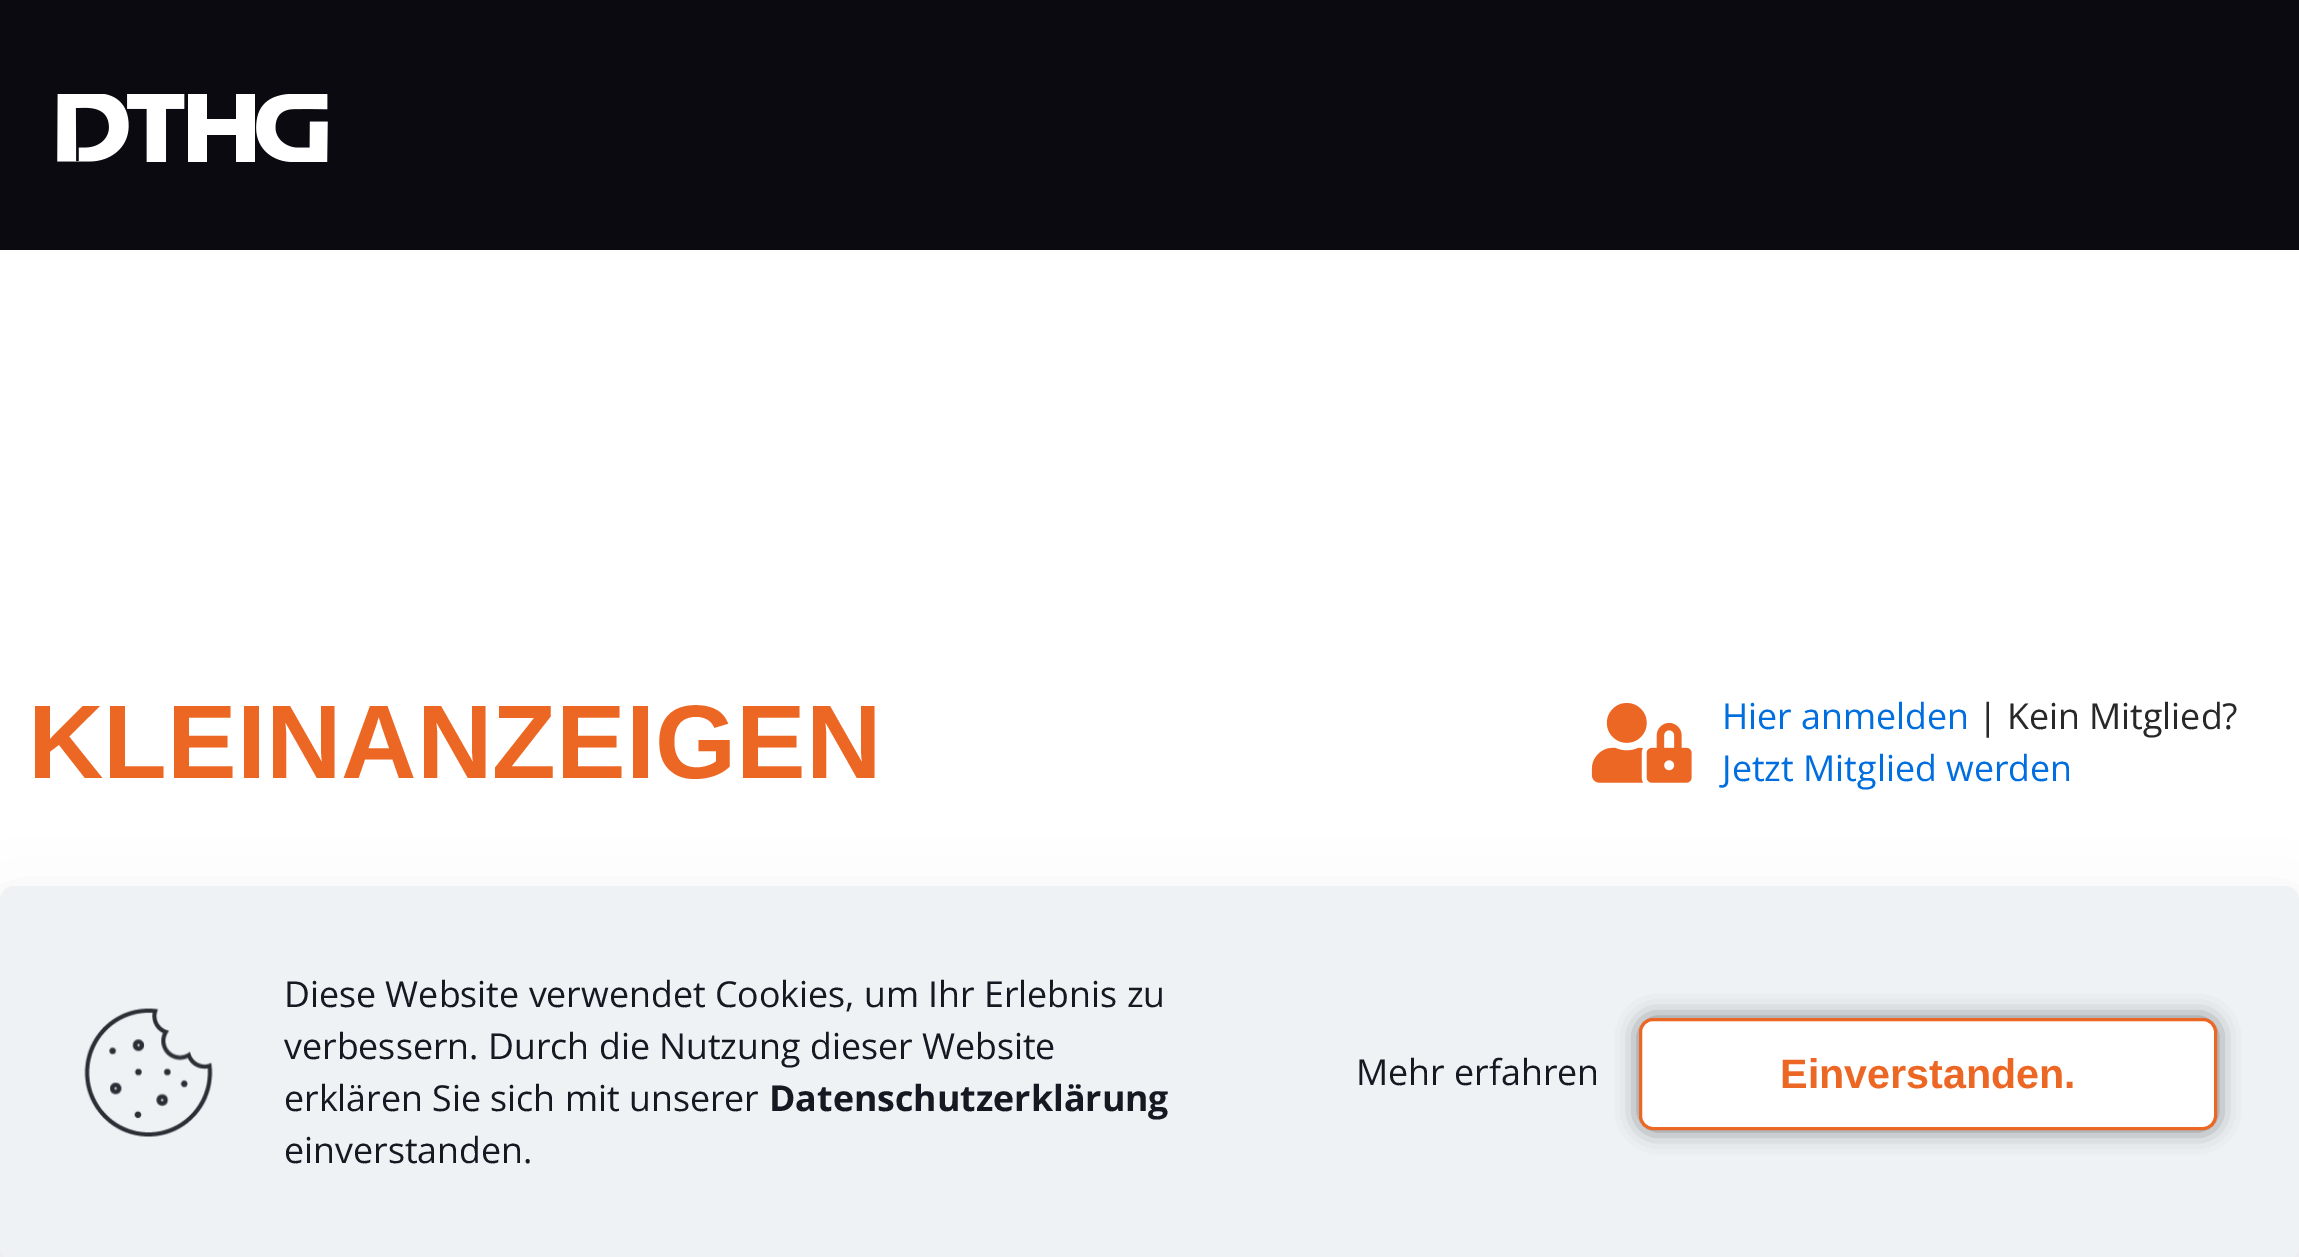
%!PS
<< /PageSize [2299 1257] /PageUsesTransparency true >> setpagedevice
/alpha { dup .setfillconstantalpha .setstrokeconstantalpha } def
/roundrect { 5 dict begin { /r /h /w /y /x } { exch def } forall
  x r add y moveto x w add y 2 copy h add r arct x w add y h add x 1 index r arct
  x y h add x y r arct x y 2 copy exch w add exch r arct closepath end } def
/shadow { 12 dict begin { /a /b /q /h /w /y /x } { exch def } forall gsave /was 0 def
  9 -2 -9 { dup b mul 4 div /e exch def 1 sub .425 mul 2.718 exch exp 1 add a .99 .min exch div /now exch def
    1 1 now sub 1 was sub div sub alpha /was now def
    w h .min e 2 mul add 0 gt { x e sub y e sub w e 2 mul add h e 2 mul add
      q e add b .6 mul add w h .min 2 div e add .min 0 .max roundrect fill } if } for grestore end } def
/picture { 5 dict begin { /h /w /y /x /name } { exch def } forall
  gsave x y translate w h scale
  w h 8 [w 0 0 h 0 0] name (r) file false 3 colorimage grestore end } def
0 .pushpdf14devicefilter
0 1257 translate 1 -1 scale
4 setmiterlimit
1 setgray
0 0 2299 1257 rectfill
0.039 0.039 0.063 setrgbcolor
0 0 2299 250 rectfill
(img1.rgb) 57 94 271 68 picture
/LiberationSans-Bold [104.5 0 0 -104.5 0 0] selectfont
0.925 0.4 0.141 setrgbcolor
28 778 moveto (KLEINANZEIGEN) show
(img2.rgb) 1591 703 101 80 picture
/OpenSans-Regular [35.75 0 0 -35.75 0 0] selectfont
0 0.431 0.875 setrgbcolor
1722 729 moveto (Hier anmelden) show
0.157 setgray
1978 729 moveto (| Kein Mitglied?) show
0 0.431 0.875 setrgbcolor
1722 781 moveto (Jetzt Mitglied werden) show
0.004 0.027 0.153 setrgbcolor
0 927 2299 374 14 41 0.13 shadow
0.933 0.949 0.961 setrgbcolor
0 886 2299 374 14 roundrect fill
(img3.rgb) 84 1008 129 129 picture
0.086 0.098 0.133 setrgbcolor
284 1007 moveto (Diese Website verwendet Cookies, um Ihr Erlebnis zu) show
284 1059 moveto (verbessern. Durch die Nutzung dieser Website) show
284 1111 moveto (erklären Sie sich mit unserer) show
/OpenSans-Bold [35.75 0 0 -35.75 0 0] selectfont
769 1111 moveto (Datenschutzerklärung) show
/OpenSans-Regular [35.75 0 0 -35.75 0 0] selectfont
284 1163 moveto (einverstanden.) show
1356 1085 moveto (Mehr erfahren) show
0 setgray
1639 1018 578 112 14 11 0.5 shadow
1 setgray
1640.5 1019.5 575 109 12.5 roundrect gsave fill grestore
0.925 0.4 0.141 setrgbcolor
3 setlinewidth
stroke
/LiberationSans-Bold [41.25 0 0 -41.25 0 0] selectfont
1780 1088 moveto (Einverstanden.) show
.poppdf14devicefilter showpage
